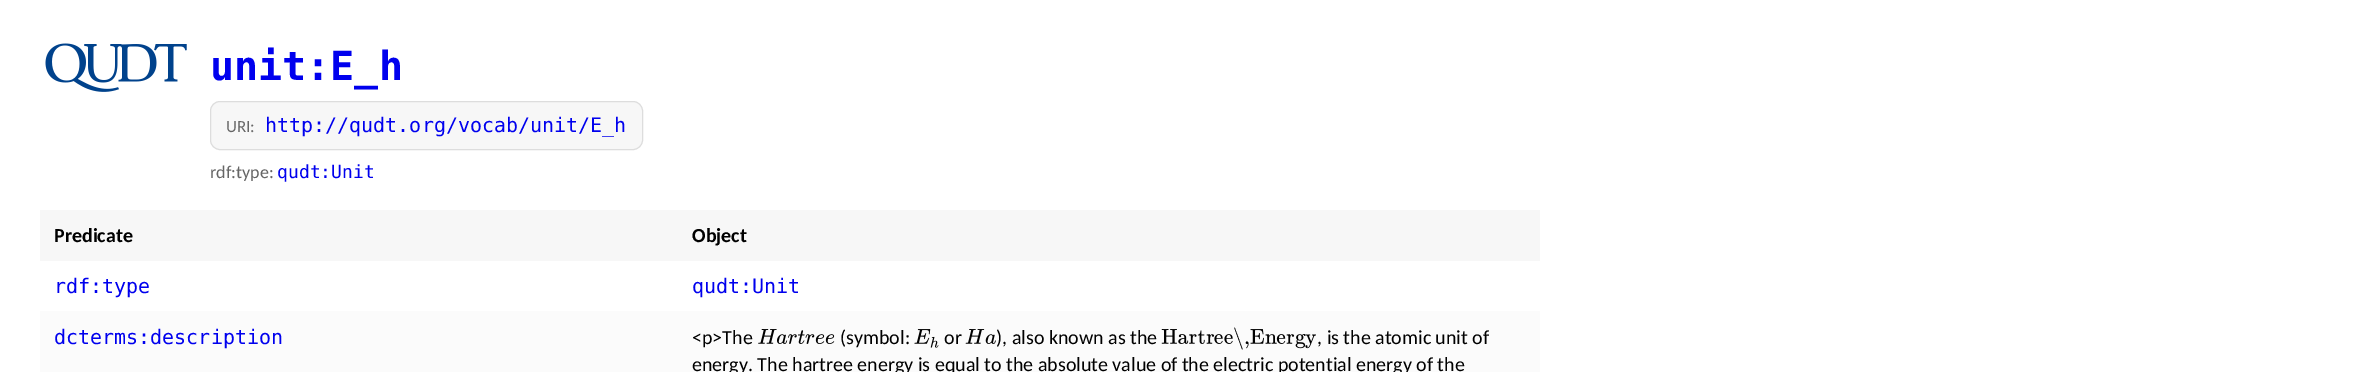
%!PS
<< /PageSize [2371 372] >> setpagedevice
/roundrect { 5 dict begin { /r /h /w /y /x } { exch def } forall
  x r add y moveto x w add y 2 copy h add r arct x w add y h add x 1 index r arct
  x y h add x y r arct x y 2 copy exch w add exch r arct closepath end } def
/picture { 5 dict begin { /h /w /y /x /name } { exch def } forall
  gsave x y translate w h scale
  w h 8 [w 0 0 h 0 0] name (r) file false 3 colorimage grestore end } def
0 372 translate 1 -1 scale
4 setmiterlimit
1 setgray
0 0 2371 372 rectfill
(img1.rgb) 45 43 142 49 picture
/DejaVuSansMono-Bold [40 0 0 -40 0 0] selectfont
0 0 0.933 setrgbcolor
210 80 moveto (unit:E_h) show
0.969 setgray
210.5 101.5 432 48 9.5 roundrect gsave fill grestore
0.867 setgray
stroke
/Carlito-Regular [17 0 0 -17 0 0] selectfont
0.4 setgray
226 132 moveto (URI:) show
/DejaVuSansMono-Regular [20 0 0 -20 0 0] selectfont
0 0 0.933 setrgbcolor
265 132 moveto (http://qudt.org/vocab/unit/E_h) show
/Carlito-Regular [18 0 0 -18 0 0] selectfont
0.4 setgray
210 178 moveto (rdf:type:) show
/DejaVuSansMono-Regular [18 0 0 -18 0 0] selectfont
0 0 0.933 setrgbcolor
277 178 moveto (qudt:Unit) show
0.969 setgray
40 210 1500 51 rectfill
/Carlito-Bold [20 0 0 -20 0 0] selectfont
0 setgray
54 242 moveto (Predicate) show
692 242 moveto (Object) show
/DejaVuSansMono-Regular [20 0 0 -20 0 0] selectfont
0 0 0.933 setrgbcolor
54 293 moveto (rdf:type) show
692 293 moveto (qudt:Unit) show
0.984 setgray
40 311 1500 61 rectfill
0 0 0.933 setrgbcolor
54 344 moveto (dcterms:description) show
/Carlito-Regular [20 0 0 -20 0 0] selectfont
0 setgray
692 344 moveto (<p>The) show
(img2.rgb) 758 329 19 15 picture
(img3.rgb) 777 334 11 10 picture
(img4.rgb) 788 334 9 10 picture
(img5.rgb) 798 330 7 14 picture
(img6.rgb) 805 334 10 10 picture
(img7.rgb) 815 334 10 10 picture
(img7.rgb) 825 334 10 10 picture
840 344 moveto (\(symbol:) show
(img8.rgb) 914 329 17 15 picture
(img9.rgb) 930 336 9 12 picture
944 344 moveto (or) show
(img10.rgb) 965 329 20 15 picture
(img11.rgb) 985 334 11 10 picture
996 344 moveto (\), also known as the) show
(img12.rgb) 1161 329 16 15 picture
(img13.rgb) 1178 334 11 10 picture
(img14.rgb) 1189 334 8 10 picture
(img15.rgb) 1197 330 8 14 picture
(img16.rgb) 1206 334 9 10 picture
(img17.rgb) 1214 334 9 10 picture
(img18.rgb) 1224 334 9 10 picture
/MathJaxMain-Regular [22 0 0 -22 0 0] selectfont
1233 344 moveto (\\,) show
(img19.rgb) 1250 329 14 15 picture
(img20.rgb) 1265 334 12 10 picture
(img21.rgb) 1276 334 10 10 picture
(img16.rgb) 1286 334 9 10 picture
(img22.rgb) 1295 334 11 15 picture
(img23.rgb) 1305 334 11 15 picture
/Carlito-Regular [20 0 0 -20 0 0] selectfont
1317 344 moveto (, is the atomic unit of) show
692 371 moveto (energy. The hartree energy is equal to the absolute value of the electric potential energy of the) show
showpage
